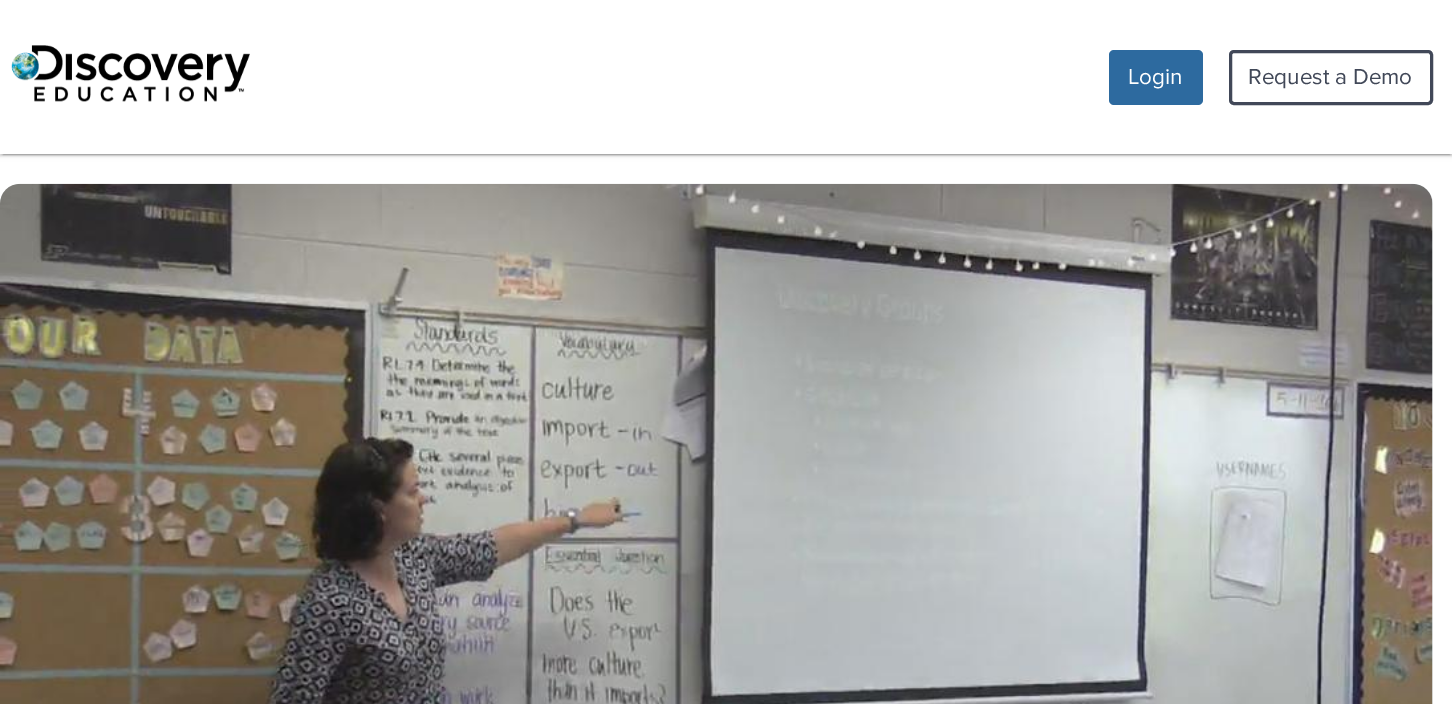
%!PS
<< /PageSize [1452 704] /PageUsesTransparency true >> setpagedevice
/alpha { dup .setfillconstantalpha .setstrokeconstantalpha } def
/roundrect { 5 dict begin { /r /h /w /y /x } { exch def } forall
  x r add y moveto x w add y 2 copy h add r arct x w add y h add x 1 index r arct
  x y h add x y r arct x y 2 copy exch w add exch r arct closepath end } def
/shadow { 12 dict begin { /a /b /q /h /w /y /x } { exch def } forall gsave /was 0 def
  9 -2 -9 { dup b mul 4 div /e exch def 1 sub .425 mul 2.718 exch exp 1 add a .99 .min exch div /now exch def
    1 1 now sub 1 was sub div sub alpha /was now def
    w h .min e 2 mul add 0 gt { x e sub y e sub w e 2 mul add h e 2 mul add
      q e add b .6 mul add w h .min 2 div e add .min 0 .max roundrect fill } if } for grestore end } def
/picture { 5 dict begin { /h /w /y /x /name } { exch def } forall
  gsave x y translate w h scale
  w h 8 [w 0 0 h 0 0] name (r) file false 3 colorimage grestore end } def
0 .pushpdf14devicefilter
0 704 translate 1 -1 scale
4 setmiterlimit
1 setgray
0 0 1452 704 rectfill
0 setgray
3 6 1447 149 0 0.5 0.2 shadow
0 1 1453 154 0 3 0.12 shadow
0 3 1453 153 0 1 0.14 shadow
1 setgray
0 0 1452 154 rectfill
(img1.rgb) 11 45 239 57 picture
0.176 0.416 0.624 setrgbcolor
1109 50 94 55 5 roundrect fill
/ProximaNova-Regular [22.5 0 0 -22.5 0 0] selectfont
1 setgray
1128 84 moveto (Login) show
0.255 0.282 0.345 setrgbcolor
3 setlinewidth
1230.5 51.5 201 52 3.5 roundrect stroke
1248 84 moveto (Request a Demo) show
0.941 0.957 0.961 setrgbcolor
newpath 20 184 moveto 1413 184 lineto 1424 184 1433 193 1433 204 curveto 1433 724 lineto 0 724 lineto 0 204 lineto 0 193 9 184 20 184 curveto closepath fill
(img2.rgb) 0 183 1433 521 picture
.poppdf14devicefilter showpage
